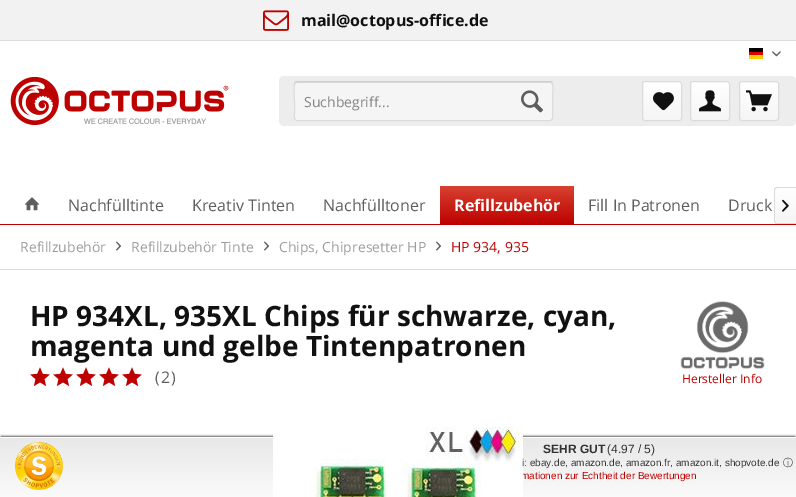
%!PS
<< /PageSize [796 497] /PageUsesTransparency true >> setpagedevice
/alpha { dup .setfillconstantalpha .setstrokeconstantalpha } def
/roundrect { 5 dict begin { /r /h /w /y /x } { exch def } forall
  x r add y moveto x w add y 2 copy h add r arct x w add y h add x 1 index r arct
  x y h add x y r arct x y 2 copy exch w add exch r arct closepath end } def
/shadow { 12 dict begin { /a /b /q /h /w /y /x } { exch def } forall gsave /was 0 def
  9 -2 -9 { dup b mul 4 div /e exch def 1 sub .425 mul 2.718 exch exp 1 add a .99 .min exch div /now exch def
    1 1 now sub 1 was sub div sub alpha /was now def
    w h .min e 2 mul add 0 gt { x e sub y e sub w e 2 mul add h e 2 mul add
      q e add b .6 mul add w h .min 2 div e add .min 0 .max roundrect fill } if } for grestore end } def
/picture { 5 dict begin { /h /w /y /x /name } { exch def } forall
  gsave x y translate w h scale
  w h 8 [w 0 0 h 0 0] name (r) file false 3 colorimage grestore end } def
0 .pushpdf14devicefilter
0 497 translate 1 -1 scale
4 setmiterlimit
1 setgray
0 0 796 497 rectfill
0.949 setgray
0 0 796 40 rectfill
0.859 setgray
0 40 796 1 rectfill
(img1.rgb) 263 10 26 21 picture
/OpenSans-Bold [16 0 0 -16 0 0] selectfont
0.067 setgray
301 26 moveto (mail@octopus-office.de) show
0 setgray
749 48 14 4 rectfill
0.867 0 0 setrgbcolor
749 52 14 3 rectfill
1 0.808 0 setrgbcolor
749 55 14 4 rectfill
(img2.rgb) 772 51 9 6 picture
(img3.rgb) 10 76 219 50 picture
0.929 setgray
279 76 517 50 5 roundrect fill
0.961 setgray
294 81 259 40 3 roundrect fill
0.859 setgray
newpath 297 83 moveto 550 83 lineto 551 83 552 84 552 85 curveto 552 84 552 82 550 82 curveto 297 82 lineto 295 82 295 84 295 85 curveto 295 84 296 83 297 83 curveto closepath fill
0.808 setgray
newpath 295 82 moveto 296.5 81.5 lineto 381.5 81.5 lineto 550 81.5 lineto 552 82 lineto stroke
0.859 setgray
newpath 552 82 moveto 553.5 84 552.5 98 552.5 101 curveto 552.5 112.5 lineto 552.5 114 554 120.5 550 120.5 curveto 297 120.5 lineto 293 120.5 294.5 114 294.5 112.5 curveto 294.5 101 lineto 294.5 98 293.5 84 295 82 curveto stroke
/OpenSans-Regular [14 0 0 -14 0 0] selectfont
0.518 setgray
304 107 moveto (Suchbegriff...) show
(img4.rgb) 521 90 22 23 picture
gsave 643 82 38 38 2 roundrect clip newpath
<< /ShadingType 2 /ColorSpace /DeviceRGB /Coords [662 82 662 120] /Extend [true true] /Function << /FunctionType 2 /Domain [0 1] /C0 [1 1 1] /C1 [0.961 0.961 0.961] /N 1 >> >> shfill grestore
0.859 setgray
642.5 81.5 39 39 2.5 roundrect stroke
(img5.rgb) 653 92 21 19 picture
gsave 691 82 38 38 2 roundrect clip newpath
<< /ShadingType 2 /ColorSpace /DeviceRGB /Coords [710 82 710 120] /Extend [true true] /Function << /FunctionType 2 /Domain [0 1] /C0 [1 1 1] /C1 [0.961 0.961 0.961] /N 1 >> >> shfill grestore
690.5 81.5 39 39 2.5 roundrect stroke
(img6.rgb) 699 90 22 22 picture
gsave 740 82 38 38 2 roundrect clip newpath
<< /ShadingType 2 /ColorSpace /DeviceRGB /Coords [759 82 759 120] /Extend [true true] /Function << /FunctionType 2 /Domain [0 1] /C0 [1 1 1] /C1 [0.961 0.961 0.961] /N 1 >> >> shfill grestore
739.5 81.5 39 39 2.5 roundrect stroke
(img7.rgb) 746 90 26 22 picture
0.741 0.004 0 setrgbcolor
0 224 796 1 rectfill
(img8.rgb) 24 197 16 14 picture
/OpenSans-Regular [16 0 0 -16 0 0] selectfont
0.369 setgray
68 211 moveto (Nachfülltinte) show
192 211 moveto (Kreativ Tinten) show
323 211 moveto (Nachfülltoner) show
gsave newpath 443 186 moveto 571 186 lineto 572.5 186 574 187.5 574 189 curveto 574 224 lineto 440 224 lineto 440 189 lineto 440 187.5 441.5 186 443 186 curveto closepath clip newpath
<< /ShadingType 2 /ColorSpace /DeviceRGB /Coords [507 186 507 224] /Extend [true true] /Function << /FunctionType 2 /Domain [0 1] /C0 [0.847 0.259 0.192] /C1 [0.741 0.004 0] /N 1 >> >> shfill grestore
/OpenSans-Bold [16 0 0 -16 0 0] selectfont
1 setgray
454 211 moveto (Refillzubehör) show
/OpenSans-Regular [16 0 0 -16 0 0] selectfont
0.369 setgray
588 211 moveto (Fill In Patronen) show
728 211 moveto (Druck) show
gsave newpath 777 188 moveto 796 188 lineto 796 223 lineto 777 223 lineto 776 223 775 222 775 221 curveto 775 190 lineto 775 189 776 188 777 188 curveto closepath clip newpath
<< /ShadingType 2 /ColorSpace /DeviceRGB /Coords [786 188 786 223] /Extend [true true] /Function << /FunctionType 2 /Domain [0 1] /C0 [1 1 1] /C1 [0.961 0.961 0.961] /N 1 >> >> shfill grestore
0.859 setgray
newpath 777 187 moveto 796 187 lineto 796 224 lineto 777 224 lineto 775.5 224 774 222.5 774 221 curveto 774 190 lineto 774 188.5 775.5 187 777 187 curveto closepath 777 188 moveto 796 188 lineto 796 223 lineto 777 223 lineto 776 223 775 222 775 221 curveto 775 190 lineto 775 189 776 188 777 188 curveto closepath eofill
(img9.rgb) 782 199 7 13 picture
0 269 796 1 rectfill
/OpenSans-Regular [14 0 0 -14 0 0] selectfont
0.62 setgray
20 252 moveto (Refillzubehör) show
(img10.rgb) 116 241 5 10 picture
131 252 moveto (Refillzubehör Tinte) show
(img10.rgb) 264 241 5 10 picture
279 252 moveto (Chips, Chipresetter HP) show
(img10.rgb) 436 241 5 10 picture
0.741 0.004 0 setrgbcolor
451 252 moveto (HP 934, 935) show
/OpenSans-Bold [28 0 0 -28 0 0] selectfont
0.067 setgray
30 326 moveto (HP 934XL, 935XL Chips für schwarze, cyan,) show
30 356 moveto (magenta und gelbe Tintenpatronen) show
(img11.rgb) 30 367 20 19 picture
(img11.rgb) 53 367 20 19 picture
(img11.rgb) 76 367 20 19 picture
(img11.rgb) 99 367 20 19 picture
(img11.rgb) 122 367 20 19 picture
/OpenSans-Regular [16 0 0 -16 0 0] selectfont
0.369 setgray
155 383 moveto 1 0 (\(2\)) ashow
(img12.rgb) 680 301 85 68 picture
/OpenSans-Regular [12 0 0 -12 0 0] selectfont
0.741 0.004 0 setrgbcolor
682 383 moveto (Hersteller Info) show
0 setgray
1 436 794 58 0 1 0.65 shadow
gsave newpath 0 438 moveto 796 438 lineto 796 497 lineto 0 497 lineto closepath clip newpath
<< /ShadingType 2 /ColorSpace /DeviceRGB /Coords [398 438 398 497] /Extend [true true] /Function << /FunctionType 2 /Domain [0 1] /C0 [0.91 0.91 0.91] /C1 [0.98 0.98 0.98] /N 1 >> >> shfill grestore
1 setgray
0 437 796 1 rectfill
/LiberationSans-Regular [10 0 0 -10 0 0] selectfont
0.741 0.004 0 setrgbcolor
521 479 moveto (mationen zur Echtheit der Bewertungen) show
(img13.rgb) 273 426 250 71 picture
(img14.rgb) 15 442 48 48 picture
/LiberationSans-Bold [12 0 0 -12 0 0] selectfont
0.2 setgray
543 453 moveto (SEHR GUT) show
/LiberationSans-Regular [12 0 0 -12 0 0] selectfont
607 453 moveto (\(4.97 / 5\)) show
/LiberationSans-Regular [10 0 0 -10 0 0] selectfont
522 466 moveto (i: ebay.de, amazon.de, amazon.fr, amazon.it, shopvote.de) show
/WenQuanYiZenHei-Medium [10 0 0 -10 0 0] selectfont
783 466 moveto (ⓘ) show
.poppdf14devicefilter showpage
